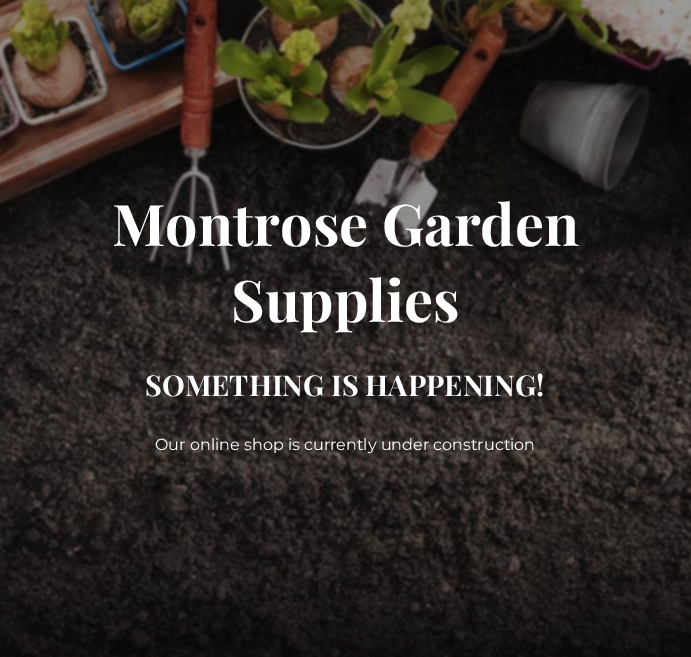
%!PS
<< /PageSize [691 657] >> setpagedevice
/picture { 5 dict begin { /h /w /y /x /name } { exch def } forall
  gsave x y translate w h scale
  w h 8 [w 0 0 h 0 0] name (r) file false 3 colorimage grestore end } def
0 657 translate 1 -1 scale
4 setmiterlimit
1 setgray
0 0 691 657 rectfill
(img1.rgb) 0 0 691 657 picture
/PlayfairDisplay-Bold [57.5 0 0 -57.5 0 0] selectfont
112 246 moveto (Montrose Garden) show
231 322 moveto (Supplies) show
/PlayfairDisplay-Bold [28.75 0 0 -28.75 0 0] selectfont
145 396 moveto (SOMETHING IS HAPPENING!) show
/Montserrat-Regular [16 0 0 -16 0 0] selectfont
155 450 moveto (Our online shop is currently under construction) show
showpage
